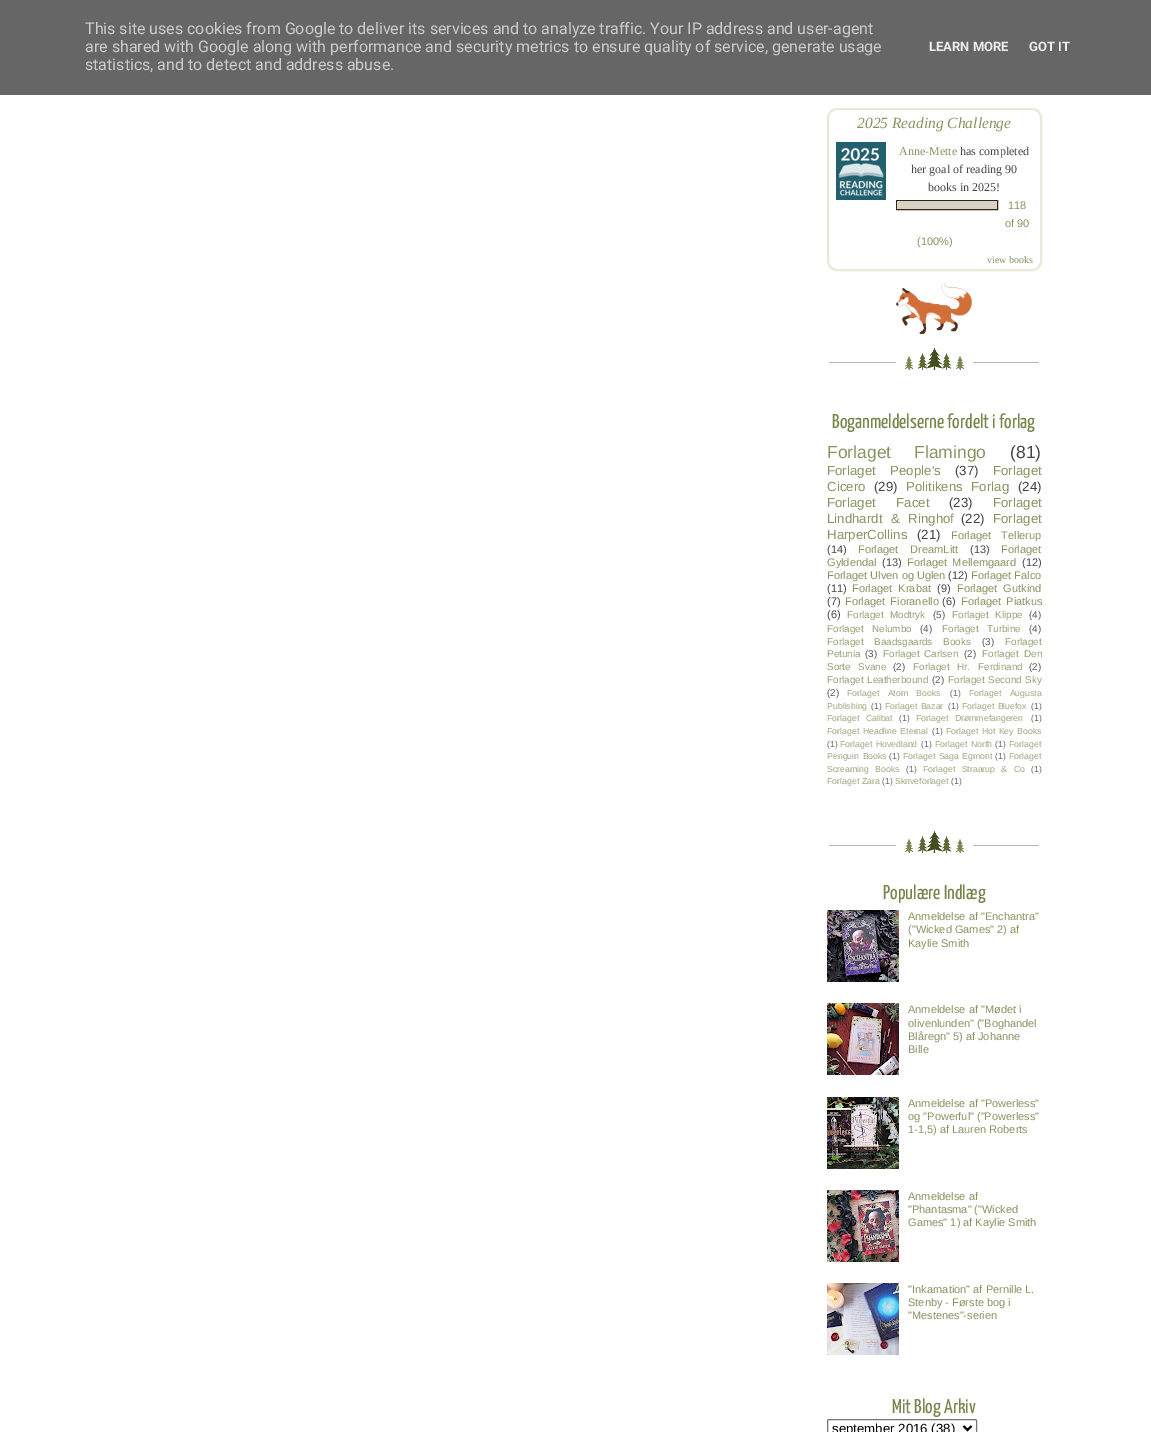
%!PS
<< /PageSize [1151 1432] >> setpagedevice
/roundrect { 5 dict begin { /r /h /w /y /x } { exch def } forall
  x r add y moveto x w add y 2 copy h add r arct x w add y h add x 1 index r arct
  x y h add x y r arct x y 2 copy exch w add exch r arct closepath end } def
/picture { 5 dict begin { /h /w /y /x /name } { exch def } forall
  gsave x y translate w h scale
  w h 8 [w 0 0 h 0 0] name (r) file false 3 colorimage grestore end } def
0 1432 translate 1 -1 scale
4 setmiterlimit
1 setgray
0 0 1151 1432 rectfill
0.4 setgray
0 0 1151 95 rectfill
/Roboto-Regular [16 0 0 -16 0 0] selectfont
0.8 setgray
85 34 moveto (This site uses cookies from Google to deliver its services and to analyze traffic. Your IP address and user-agent) show
85 52 moveto (are shared with Google along with performance and security metrics to ensure quality of service, generate usage) show
85 70 moveto (statistics, and to detect and address abuse.) show
/Roboto-Bold [13 0 0 -13 0 0] selectfont
0.933 setgray
929 51 moveto (LEARN MORE) show
1029 51 moveto (GOT IT) show
0.922 0.91 0.835 setrgbcolor
2 setlinewidth
828 109 213 161 9 roundrect stroke
/LiberationSerif-Italic [15.5 0 0 -15.5 0 0] selectfont
0.529 0.58 0.376 setrgbcolor
857 128 moveto (2025 Reading Challenge) show
(img1.rgb) 836 142 50 58 picture
/LiberationSerif-Regular [12 0 0 -12 0 0] selectfont
899 155 moveto (Anne-Mette) show
0.267 setgray
960 155 moveto (has completed) show
911 173 moveto (her goal of reading 90) show
928 191 moveto (books in 2025!) show
0.22 0.129 0.063 setrgbcolor
1 setlinewidth
896.5 200.5 101 9 rectstroke
0.843 0.824 0.769 setrgbcolor
897 201 100 8 rectfill
/LiberationSans-Regular [11 0 0 -11 0 0] selectfont
0.529 0.58 0.376 setrgbcolor
1008 209 moveto (118) show
1005 227 moveto (of 90) show
917 245 moveto (\(100%\)) show
/LiberationSerif-Regular [10 0 0 -10 0 0] selectfont
987 263 moveto (view books) show
(img2.rgb) 896 283 76 51 picture
(img3.rgb) 829 348 210 22 picture
/YanoneKaffeesatz-ExtraLight [20 0 0 -20 0 0] selectfont
0.467 0.525 0.298 setrgbcolor
832 428 moveto (Boganmeldelserne fordelt i forlag) show
/LiberationSans-Regular [17.5 0 0 -17.5 0 0] selectfont
0.529 0.58 0.376 setrgbcolor
827 458 moveto 18 0 32 (Forlaget Flamingo) widthshow
0.267 setgray
1010 458 moveto (\(81\)) show
/LiberationSans-Regular [13.25 0 0 -13.25 0 0] selectfont
0.529 0.58 0.376 setrgbcolor
827 475 moveto 11 0 32 (Forlaget People's) widthshow
0.267 setgray
955 475 moveto (\(37\)) show
0.529 0.58 0.376 setrgbcolor
993 475 moveto (Forlaget) show
827 491 moveto (Cicero) show
0.267 setgray
874 491 moveto (\(29\)) show
0.529 0.58 0.376 setrgbcolor
906 491 moveto 5 0 32 (Politikens Forlag) widthshow
0.267 setgray
1018 491 moveto (\(24\)) show
0.529 0.58 0.376 setrgbcolor
827 507 moveto 17 0 32 (Forlaget Facet) widthshow
0.267 setgray
949 507 moveto (\(23\)) show
0.529 0.58 0.376 setrgbcolor
993 507 moveto (Forlaget) show
827 523 moveto 5 0 32 (Lindhardt & Ringhof) widthshow
0.267 setgray
961 523 moveto (\(22\)) show
0.529 0.58 0.376 setrgbcolor
993 523 moveto (Forlaget) show
827 539 moveto (HarperCollins) show
0.267 setgray
917 539 moveto (\(21\)) show
/LiberationSans-Regular [11 0 0 -11 0 0] selectfont
0.529 0.58 0.376 setrgbcolor
951 539 moveto 7 0 32 (Forlaget Tellerup) widthshow
0.267 setgray
827 553 moveto (\(14\)) show
0.529 0.58 0.376 setrgbcolor
858 553 moveto 9 0 32 (Forlaget DreamLitt) widthshow
0.267 setgray
970 553 moveto (\(13\)) show
0.529 0.58 0.376 setrgbcolor
1001 553 moveto (Forlaget) show
827 566 moveto (Gyldendal) show
0.267 setgray
882 566 moveto (\(13\)) show
0.529 0.58 0.376 setrgbcolor
907 566 moveto 2 0 32 (Forlaget Mellemgaard) widthshow
0.267 setgray
1022 566 moveto (\(12\)) show
0.529 0.58 0.376 setrgbcolor
827 579 moveto (Forlaget Ulven og Uglen) show
0.267 setgray
948 579 moveto (\(12\)) show
0.529 0.58 0.376 setrgbcolor
971 579 moveto (Forlaget Falco) show
0.267 setgray
827 592 moveto (\(11\)) show
0.529 0.58 0.376 setrgbcolor
852 592 moveto 3 0 32 (Forlaget Krabat) widthshow
0.267 setgray
937 592 moveto (\(9\)) show
0.529 0.58 0.376 setrgbcolor
957 592 moveto 3 0 32 (Forlaget Gutkind) widthshow
0.267 setgray
827 605 moveto (\(7\)) show
0.529 0.58 0.376 setrgbcolor
845 605 moveto 2 0 32 (Forlaget Fioranello) widthshow
0.267 setgray
942 605 moveto (\(6\)) show
0.529 0.58 0.376 setrgbcolor
961 605 moveto 2 0 32 (Forlaget Piatkus) widthshow
0.267 setgray
827 618 moveto (\(6\)) show
/LiberationSans-Regular [9.9 0 0 -9.9 0 0] selectfont
0.576 0.624 0.439 setrgbcolor
847 618 moveto 4 0 32 (Forlaget Modtryk) widthshow
0.341 setgray
933 618 moveto (\(5\)) show
0.576 0.624 0.439 setrgbcolor
952 618 moveto 4 0 32 (Forlaget Klippe) widthshow
0.341 setgray
1029 618 moveto (\(4\)) show
0.576 0.624 0.439 setrgbcolor
827 632 moveto 6 0 32 (Forlaget Nelumbo) widthshow
0.341 setgray
920 632 moveto (\(4\)) show
0.576 0.624 0.439 setrgbcolor
942 632 moveto 6 0 32 (Forlaget Turbine) widthshow
0.341 setgray
1029 632 moveto (\(4\)) show
0.576 0.624 0.439 setrgbcolor
827 645 moveto 8 0 32 (Forlaget Baadsgaards Books) widthshow
0.341 setgray
982 645 moveto (\(3\)) show
0.576 0.624 0.439 setrgbcolor
1005 645 moveto (Forlaget) show
827 657 moveto (Petunia) show
0.341 setgray
865 657 moveto (\(3\)) show
0.576 0.624 0.439 setrgbcolor
883 657 moveto 2 0 32 (Forlaget Carlsen) widthshow
0.341 setgray
964 657 moveto (\(2\)) show
0.576 0.624 0.439 setrgbcolor
982 657 moveto 3 0 32 (Forlaget Den) widthshow
827 670 moveto 5 0 32 (Sorte Svane) widthshow
0.341 setgray
893 670 moveto (\(2\)) show
0.576 0.624 0.439 setrgbcolor
913 670 moveto 5 0 32 (Forlaget Hr. Ferdinand) widthshow
0.341 setgray
1029 670 moveto (\(2\)) show
0.576 0.624 0.439 setrgbcolor
827 683 moveto 1 0 32 (Forlaget Leatherbound) widthshow
0.341 setgray
932 683 moveto (\(2\)) show
0.576 0.624 0.439 setrgbcolor
948 683 moveto 1 0 32 (Forlaget Second Sky) widthshow
0.341 setgray
827 696 moveto (\(2\)) show
/LiberationSans-Regular [8.75 0 0 -8.75 0 0] selectfont
0.624 0.663 0.502 setrgbcolor
847 696 moveto 6 0 32 (Forlaget Atom Books) widthshow
0.412 setgray
950 696 moveto (\(1\)) show
0.624 0.663 0.502 setrgbcolor
969 696 moveto 6 0 32 (Forlaget Augusta) widthshow
827 709 moveto (Publishing) show
0.412 setgray
871 709 moveto (\(1\)) show
0.624 0.663 0.502 setrgbcolor
885 709 moveto 1 0 32 (Forlaget Bazar) widthshow
0.412 setgray
948 709 moveto (\(1\)) show
0.624 0.663 0.502 setrgbcolor
962 709 moveto 1 0 32 (Forlaget Bluefox) widthshow
0.412 setgray
1031 709 moveto (\(1\)) show
0.624 0.663 0.502 setrgbcolor
827 721 moveto 4 0 32 (Forlaget Calibat) widthshow
0.412 setgray
899 721 moveto (\(1\)) show
0.624 0.663 0.502 setrgbcolor
916 721 moveto 4 0 32 (Forlaget Drømmefangeren) widthshow
0.412 setgray
1031 721 moveto (\(1\)) show
0.624 0.663 0.502 setrgbcolor
827 734 moveto 1 0 32 (Forlaget Headline Eternal) widthshow
0.412 setgray
932 734 moveto (\(1\)) show
0.624 0.663 0.502 setrgbcolor
946 734 moveto 1 0 32 (Forlaget Hot Key Books) widthshow
0.412 setgray
827 747 moveto (\(1\)) show
0.624 0.663 0.502 setrgbcolor
840 747 moveto 1 0 32 (Forlaget Hovedland) widthshow
0.412 setgray
921 747 moveto (\(1\)) show
0.624 0.663 0.502 setrgbcolor
935 747 moveto 1 0 32 (Forlaget North) widthshow
0.412 setgray
995 747 moveto (\(1\)) show
0.624 0.663 0.502 setrgbcolor
1009 747 moveto (Forlaget) show
827 759 moveto 1 0 32 (Penguin Books) widthshow
0.412 setgray
889 759 moveto (\(1\)) show
0.624 0.663 0.502 setrgbcolor
903 759 moveto 1 0 32 (Forlaget Saga Egmont) widthshow
0.412 setgray
995 759 moveto (\(1\)) show
0.624 0.663 0.502 setrgbcolor
1009 759 moveto (Forlaget) show
827 772 moveto 4 0 32 (Screaming Books) widthshow
0.412 setgray
906 772 moveto (\(1\)) show
0.624 0.663 0.502 setrgbcolor
923 772 moveto 4 0 32 (Forlaget Straarup & Co) widthshow
0.412 setgray
1031 772 moveto (\(1\)) show
0.624 0.663 0.502 setrgbcolor
827 784 moveto (Forlaget Zara) show
0.412 setgray
882 784 moveto (\(1\)) show
0.624 0.663 0.502 setrgbcolor
895 784 moveto (Skriveforlaget) show
0.412 setgray
951 784 moveto (\(1\)) show
(img3.rgb) 829 831 210 22 picture
/YanoneKaffeesatz-ExtraLight [20 0 0 -20 0 0] selectfont
0.467 0.525 0.298 setrgbcolor
883 899 moveto (Populære Indlæg) show
(img4.rgb) 827 910 72 72 picture
/LiberationSans-Regular [11 0 0 -11 0 0] selectfont
0.529 0.58 0.376 setrgbcolor
908 920 moveto (Anmeldelse af "Enchantra") show
908 933 moveto (\("Wicked Games" 2\) af) show
908 947 moveto (Kaylie Smith) show
(img5.rgb) 827 1003 72 72 picture
908 1013 moveto (Anmeldelse af "Mødet i) show
908 1027 moveto (olivenlunden" \("Boghandel) show
908 1040 moveto (Blåregn" 5\) af Johanne) show
908 1053 moveto (Bille) show
(img6.rgb) 827 1097 72 72 picture
908 1107 moveto (Anmeldelse af "Powerless") show
908 1120 moveto (og "Powerful" \("Powerless") show
908 1133 moveto (1-1,5\) af Lauren Roberts) show
(img7.rgb) 827 1190 72 72 picture
908 1200 moveto (Anmeldelse af) show
908 1213 moveto ("Phantasma" \("Wicked) show
908 1226 moveto (Games" 1\) af Kaylie Smith) show
(img8.rgb) 827 1283 72 72 picture
908 1293 moveto ("Inkarnation" af Pernille L.) show
908 1306 moveto (Stenby - Første bog i) show
908 1319 moveto ("Mestenes"-serien) show
/YanoneKaffeesatz-ExtraLight [20 0 0 -20 0 0] selectfont
0.467 0.525 0.298 setrgbcolor
892 1413 moveto (Mit Blog Arkiv) show
0.463 setgray
827.5 1419.5 149 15 1.5 roundrect stroke
0 setgray
2 setlinewidth
newpath 963.5 1426 moveto 967.5 1430 lineto 971.5 1426 lineto stroke
/LiberationSans-Regular [13.25 0 0 -13.25 0 0] selectfont
832 1433 moveto (september 2016 \(38\)) show
showpage
